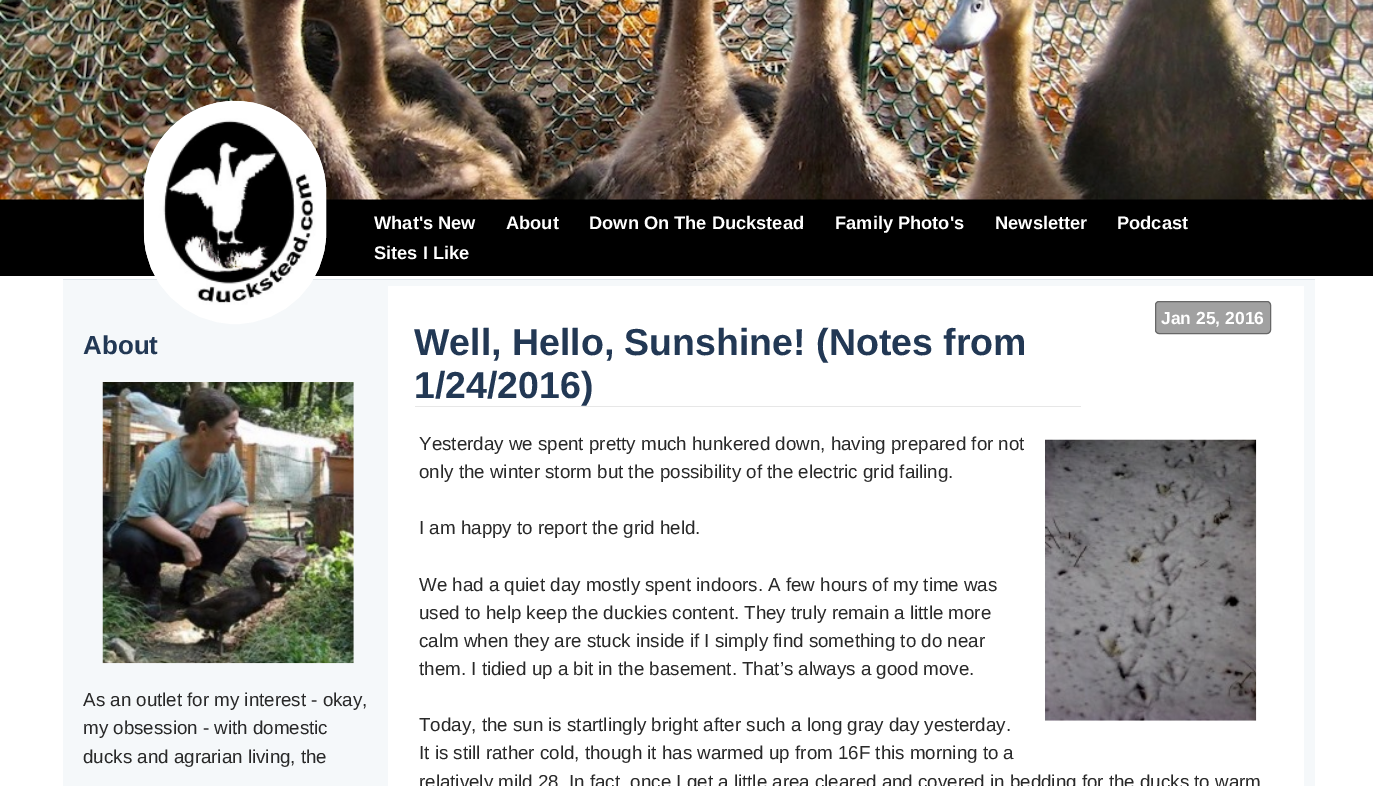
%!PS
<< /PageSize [1373 786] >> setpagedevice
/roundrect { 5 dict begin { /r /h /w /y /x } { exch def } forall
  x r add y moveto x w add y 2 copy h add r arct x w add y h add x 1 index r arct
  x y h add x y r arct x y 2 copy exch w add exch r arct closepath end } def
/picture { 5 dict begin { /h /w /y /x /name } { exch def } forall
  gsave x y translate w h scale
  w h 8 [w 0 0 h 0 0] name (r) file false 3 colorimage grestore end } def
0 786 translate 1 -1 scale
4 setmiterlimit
1 setgray
0 0 1373 786 rectfill
0 setgray
0 199 1373 77 rectfill
(img1.rgb) 0 0 1373 200 picture
/LiberationSans-Bold [18.25 0 0 -18.25 0 0] selectfont
1 setgray
374 229 moveto (What's New) show
506 229 moveto (About) show
589 229 moveto (Down On The Duckstead) show
835 229 moveto (Family Photo's) show
995 229 moveto (Newsletter) show
1117 229 moveto (Podcast) show
374 259 moveto (Sites I Like) show
0.961 0.973 0.98 setrgbcolor
63 280 1252 506 rectfill
0.875 0.902 0.922 setrgbcolor
63 279 1252 1 rectfill
(img2.rgb) 143 100 184 223 picture
1 setgray
6 setlinewidth
147 104 176 217 88 roundrect stroke
/LiberationSans-Bold [26 0 0 -26 0 0] selectfont
0.133 0.22 0.329 setrgbcolor
83 354 moveto (About) show
(img3.rgb) 102 382 252 282 picture
/LiberationSans-Regular [18.75 0 0 -18.75 0 0] selectfont
0.161 setgray
83 706 moveto (As an outlet for my interest - okay,) show
83 734 moveto (my obsession - with domestic) show
83 763 moveto (ducks and agrarian living, the) show
1 setgray
388 286 916 500 rectfill
0.631 setgray
1155.5 301.5 115 32 3.5 roundrect gsave fill grestore
0.404 setgray
1 setlinewidth
stroke
/LiberationSans-Bold [17.5 0 0 -17.5 0 0] selectfont
1 setgray
1161 324 moveto (Jan 25, 2016) show
0.906 setgray
415 406 666 1 rectfill
/LiberationSans-Bold [37.5 0 0 -37.5 0 0] selectfont
0.133 0.22 0.329 setrgbcolor
414 355 moveto (Well, Hello, Sunshine! \(Notes from) show
414 398 moveto (1/24/2016\)) show
/LiberationSans-Regular [18.75 0 0 -18.75 0 0] selectfont
0.161 setgray
419 450 moveto (Yesterday we spent pretty much hunkered down, having prepared for not) show
(img4.rgb) 1045 439 212 282 picture
419 478 moveto (only the winter storm but the possibility of the electric grid failing.) show
419 534 moveto (I am happy to report the grid held.) show
419 591 moveto (We had a quiet day mostly spent indoors. A few hours of my time was) show
419 619 moveto (used to help keep the duckies content. They truly remain a little more) show
419 647 moveto (calm when they are stuck inside if I simply find something to do near) show
419 675 moveto (them. I tidied up a bit in the basement. That’s always a good move.) show
419 731 moveto (Today, the sun is startlingly bright after such a long gray day yesterday.) show
419 759 moveto (It is still rather cold, though it has warmed up from 16F this morning to a) show
419 788 moveto (relatively mild 28) show
569 788 moveto (In fact, once I get a little area cleared and covered in bedding for the ducks to warm) show
showpage
